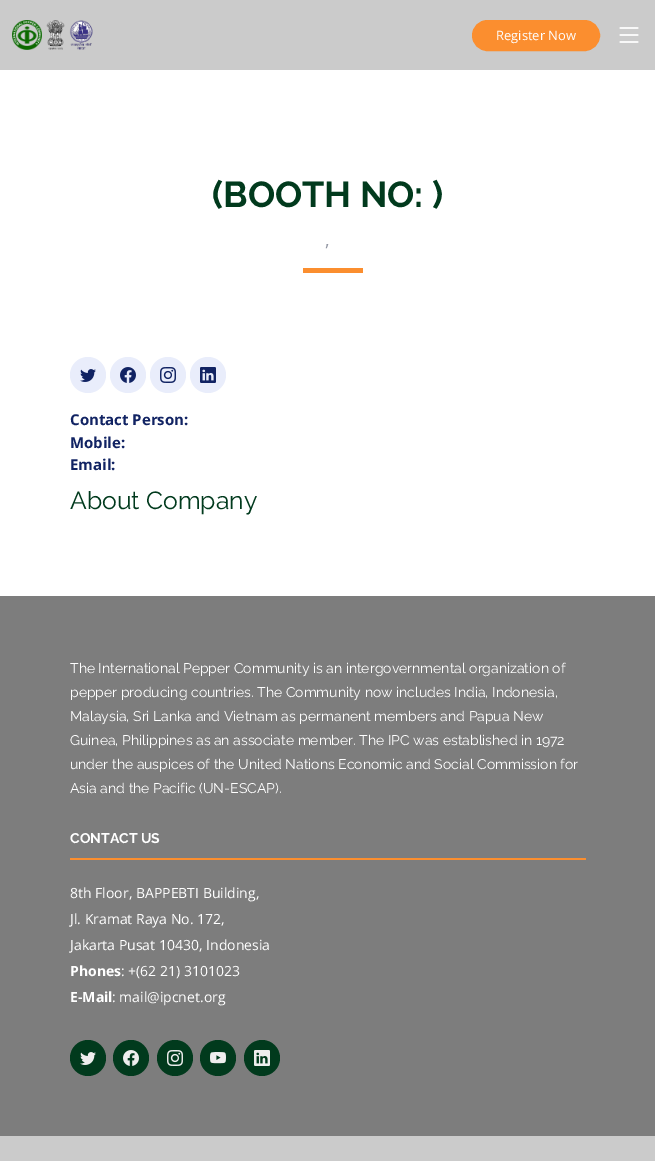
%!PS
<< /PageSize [655 1162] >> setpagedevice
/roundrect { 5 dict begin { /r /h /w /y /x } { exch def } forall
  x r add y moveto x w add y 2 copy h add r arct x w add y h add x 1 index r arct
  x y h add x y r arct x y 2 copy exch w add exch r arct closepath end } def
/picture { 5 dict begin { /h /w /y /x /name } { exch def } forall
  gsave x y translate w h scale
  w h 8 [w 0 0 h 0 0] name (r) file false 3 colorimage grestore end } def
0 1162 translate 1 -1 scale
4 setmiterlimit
1 setgray
0 0 655 1162 rectfill
0.796 setgray
0 0 655 70 rectfill
(img1.rgb) 12 20 30 30 picture
(img2.rgb) 46 20 19 30 picture
(img3.rgb) 69 20 24 30 picture
0.984 0.557 0.184 setrgbcolor
473 21 126 29 14.5 roundrect gsave fill grestore
2 setlinewidth
stroke
/OpenSans-Regular [13 0 0 -13 0 0] selectfont
1 setgray
496 40 moveto (Register Now) show
(img4.rgb) 619 27 20 16 picture
/Raleway-Bold [36 0 0 -36 0 0] selectfont
0.004 0.227 0.114 setrgbcolor
212 207 moveto (\(BOOTH NO: \)) show
/OpenSans-Regular [18 0 0 -18 0 0] selectfont
0.569 0.584 0.635 setrgbcolor
325 246 moveto (,) show
0.984 0.557 0.184 setrgbcolor
303 268 60 5 rectfill
0.914 0.929 0.984 setrgbcolor
newpath 88 375 18 0 360 arc closepath fill
(img5.rgb) 80 369 16 13 picture
newpath 128 375 18 0 360 arc closepath fill
(img6.rgb) 120 367 16 16 picture
newpath 168 375 18 0 360 arc closepath fill
(img7.rgb) 160 367 16 16 picture
newpath 208 375 18 0 360 arc closepath fill
(img8.rgb) 200 367 16 16 picture
/OpenSans-Bold [15 0 0 -15 0 0] selectfont
0.067 0.137 0.388 setrgbcolor
70 425 moveto (Contact Person:) show
70 448 moveto (Mobile:) show
70 470 moveto (Email:) show
/Raleway-Regular [24.75 0 0 -24.75 0 0] selectfont
0.004 0.227 0.114 setrgbcolor
70 509 moveto (About Company) show
0.796 setgray
0 1136 655 25 rectfill
0.49 setgray
0 596 655 540 rectfill
/Raleway-Regular [14 0 0 -14 0 0] selectfont
1 setgray
70 673 moveto (The International Pepper Community is an intergovernmental organization of) show
70 697 moveto (pepper producing countries. The Community now includes India, Indonesia,) show
70 721 moveto (Malaysia, Sri Lanka and Vietnam as permanent members and Papua New) show
70 745 moveto (Guinea, Philippines as an associate member. The IPC was established in 1972) show
70 769 moveto (under the auspices of the United Nations Economic and Social Commission for) show
70 793 moveto (Asia and the Pacific \(UN-ESCAP\).) show
0.984 0.557 0.184 setrgbcolor
70 858 516 2 rectfill
/Raleway-Bold [14 0 0 -14 0 0] selectfont
1 setgray
70 843 moveto (CONTACT US) show
/OpenSans-Regular [14 0 0 -14 0 0] selectfont
70 898 moveto (8th Floor, BAPPEBTI Building,) show
70 924 moveto (Jl. Kramat Raya No. 172,) show
70 950 moveto (Jakarta Pusat 10430, Indonesia) show
/OpenSans-Bold [14 0 0 -14 0 0] selectfont
70 976 moveto (Phones) show
/OpenSans-Regular [14 0 0 -14 0 0] selectfont
121 976 moveto (: +\(62 21\) 3101023) show
/OpenSans-Bold [14 0 0 -14 0 0] selectfont
70 1002 moveto (E-Mail) show
/OpenSans-Regular [14 0 0 -14 0 0] selectfont
112 1002 moveto (: mail@ipcnet.org) show
0.004 0.227 0.114 setrgbcolor
newpath 88 1058 18 0 360 arc closepath fill
(img9.rgb) 80 1052 16 13 picture
newpath 131 1058 18 0 360 arc closepath fill
(img10.rgb) 123 1050 16 16 picture
newpath 175 1058 18 0 360 arc closepath fill
(img11.rgb) 167 1050 16 16 picture
newpath 218 1058 18 0 360 arc closepath fill
(img12.rgb) 210 1052 16 12 picture
newpath 262 1058 18 0 360 arc closepath fill
(img13.rgb) 254 1050 16 16 picture
showpage
